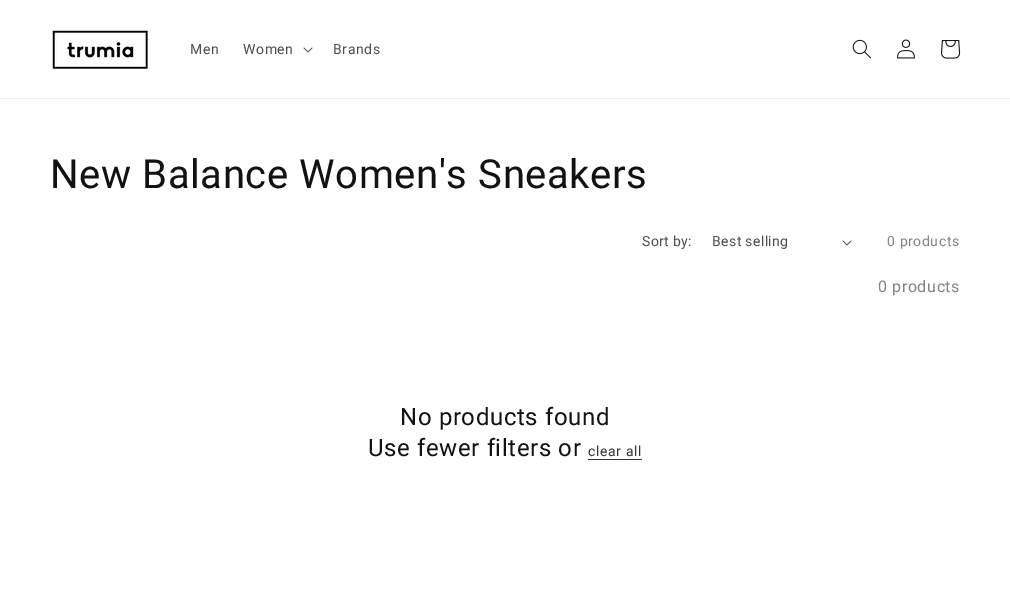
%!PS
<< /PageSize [1010 607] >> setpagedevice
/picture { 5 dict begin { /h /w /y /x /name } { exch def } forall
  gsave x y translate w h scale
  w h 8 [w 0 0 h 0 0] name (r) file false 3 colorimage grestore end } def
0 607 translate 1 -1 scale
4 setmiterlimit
1 setgray
0 0 1010 607 rectfill
0.925 setgray
0 98 1010 1 rectfill
(img1.rgb) 50 30 100 39 picture
/Roboto-Regular [14 0 0 -14 0 0] selectfont
0.302 setgray
190 54 moveto 0.6 0 (Men) ashow
243 54 moveto 0.6 0 (Women) ashow
(img2.rgb) 303 47 10 6 picture
333 54 moveto 0.6 0 (Brands) ashow
(img3.rgb) 852 39 19 20 picture
(img4.rgb) 897 39 18 20 picture
(img5.rgb) 941 40 20 19 picture
/Roboto-Regular [40 0 0 -40 0 0] selectfont
0.071 setgray
50 188 moveto 0.6 0 (New Balance Women's Sneakers) ashow
/Roboto-Regular [14 0 0 -14 0 0] selectfont
0.302 setgray
642 246 moveto 0.4 0 (Sort by:) ashow
712 246 moveto 0.4 0 (Best selling) ashow
(img2.rgb) 842 240 10 6 picture
0.514 setgray
887 246 moveto 0.6 0 (0 products) ashow
/Roboto-Regular [16 0 0 -16 0 0] selectfont
878 292 moveto 0.6 0 (0 products) ashow
/Roboto-Regular [24 0 0 -24 0 0] selectfont
0.071 setgray
400 425 moveto 0.6 0 (No products found) ashow
368 456 moveto 0.6 0 (Use fewer filters or) ashow
/Roboto-Regular [14 0 0 -14 0 0] selectfont
0.212 setgray
588 456 moveto 0.6 0 (clear all) ashow
588 459 54 1 rectfill
showpage
